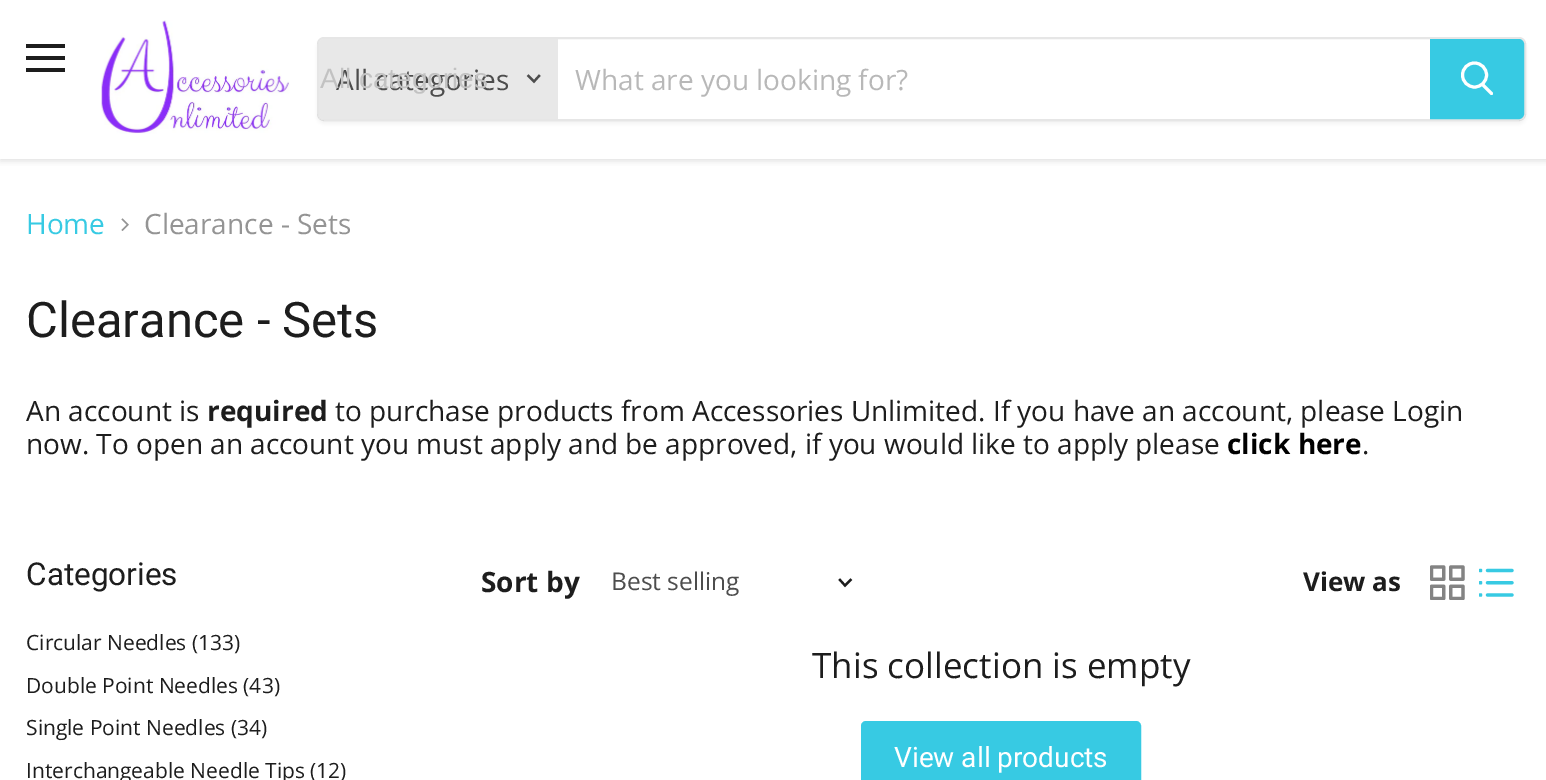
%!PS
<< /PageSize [1546 780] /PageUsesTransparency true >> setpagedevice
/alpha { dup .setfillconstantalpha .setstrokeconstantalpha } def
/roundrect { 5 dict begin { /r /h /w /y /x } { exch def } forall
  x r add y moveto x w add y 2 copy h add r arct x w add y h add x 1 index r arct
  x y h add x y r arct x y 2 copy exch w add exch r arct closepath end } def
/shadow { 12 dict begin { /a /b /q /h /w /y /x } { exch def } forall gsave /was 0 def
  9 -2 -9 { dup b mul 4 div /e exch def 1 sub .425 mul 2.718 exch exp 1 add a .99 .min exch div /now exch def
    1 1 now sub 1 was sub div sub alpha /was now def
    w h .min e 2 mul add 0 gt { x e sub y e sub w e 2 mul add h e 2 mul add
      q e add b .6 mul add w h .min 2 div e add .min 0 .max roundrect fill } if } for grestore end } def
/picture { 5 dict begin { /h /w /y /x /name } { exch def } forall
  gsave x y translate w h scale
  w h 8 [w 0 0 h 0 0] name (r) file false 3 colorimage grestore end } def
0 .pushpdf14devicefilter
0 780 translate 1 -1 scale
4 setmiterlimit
1 setgray
0 0 1546 780 rectfill
gsave
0 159 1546 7 rectclip
0.502 setgray
0 2 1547 159 0 3.5 0.25 shadow
grestore
0.114 setgray
26 44 39 4 rectfill
26 56 39 4 rectfill
26 68 39 4 rectfill
(img1.rgb) 101 20 189 114 picture
gsave
newpath 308 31 moveto 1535 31 lineto 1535 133 lineto 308 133 lineto closepath 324 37 moveto 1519 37 lineto 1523 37 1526 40 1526 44 curveto 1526 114 lineto 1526 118 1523 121 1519 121 curveto 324 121 lineto 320 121 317 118 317 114 curveto 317 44 lineto 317 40 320 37 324 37 curveto closepath eoclip newpath
0.502 setgray
317 40 1209 84 7 2.5 0.11 shadow
grestore
0.2 alpha
0.502 setgray
2 setlinewidth
318 38 1207 82 6 roundrect stroke
1 alpha
0.91 setgray
newpath 324 39 moveto 558 39 lineto 558 119 lineto 324 119 lineto 321 119 319 117 319 114 curveto 319 44 lineto 319 41 321 39 324 39 curveto closepath fill
/OpenSans-Regular [28 0 0 -28 0 0] selectfont
0.302 setgray
336 90 moveto (All categories) show
/LiberationSans-Regular [28 0 0 -28 0 0] selectfont
0.761 setgray
320 88 moveto (All categories) show
0.302 setgray
2.2 setlinewidth
2 setlinecap
newpath 534 81.5 moveto 539 76 lineto 534 81.5 moveto 528.5 76 lineto stroke
/OpenSans-Regular [28 0 0 -28 0 0] selectfont
0.722 setgray
575 90 moveto (What are you looking for?) show
0.216 0.792 0.89 setrgbcolor
newpath 1431 40 moveto 1519 40 lineto 1521 40 1523 42 1523 44 curveto 1523 114 lineto 1523 116 1521 118 1519 118 curveto 1431 118 lineto closepath gsave fill grestore
2 setlinewidth
0 setlinecap
stroke
1 setgray
3 setlinewidth
1 setlinecap
newpath 1491.5 93.5 moveto 1483 85 lineto stroke
0 setlinecap
newpath 1474.5 75 12 0 360 arc closepath stroke
0.216 0.792 0.89 setrgbcolor
26 234 moveto (Home) show
(img2.rgb) 121 218 8 13 picture
0.58 setgray
144 234 moveto (Clearance - Sets) show
/Roboto-Regular [49 0 0 -49 0 0] selectfont
0.114 setgray
26 337 moveto (Clearance - Sets) show
/OpenSans-Regular [28 0 0 -28 0 0] selectfont
26 421 moveto (An account is) show
/OpenSans-Bold [28 0 0 -28 0 0] selectfont
207 421 moveto (required) show
/OpenSans-Regular [28 0 0 -28 0 0] selectfont
335 421 moveto (to purchase products from Accessories Unlimited. If you have an account, please Login) show
26 454 moveto (now. To open an account you must apply and be approved, if you would like to apply please) show
/OpenSans-Bold [28 0 0 -28 0 0] selectfont
0 setgray
1227 454 moveto (click here) show
/OpenSans-Regular [28 0 0 -28 0 0] selectfont
0.114 setgray
1362 454 moveto (.) show
/Roboto-Regular [31.5 0 0 -31.5 0 0] selectfont
26 585 moveto (Categories) show
/OpenSans-Regular [21 0 0 -21 0 0] selectfont
26 650 moveto (Circular Needles \(133\)) show
26 693 moveto (Double Point Needles \(43\)) show
26 735 moveto (Single Point Needles \(34\)) show
26 778 moveto (Interchangeable Needle Tips \(12\)) show
/OpenSans-Bold [28 0 0 -28 0 0] selectfont
481 592 moveto (Sort by) show
/OpenSans-Regular [24.5 0 0 -24.5 0 0] selectfont
0.302 setgray
611 590 moveto (Best selling) show
0.114 setgray
2.2 setlinewidth
2 setlinecap
newpath 845 585.5 moveto 850.5 580 lineto 845 585.5 moveto 840 580 lineto stroke
/OpenSans-Bold [26 0 0 -26 0 0] selectfont
1303 591 moveto (View as) show
(img3.rgb) 1430 565 35 35 picture
(img4.rgb) 1479 568 35 29 picture
/OpenSans-Regular [35 0 0 -35 0 0] selectfont
812 678 moveto (This collection is empty) show
0.216 0.792 0.89 setrgbcolor
862 722 278 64 4 roundrect gsave fill grestore
2 setlinewidth
0 setlinecap
stroke
/Roboto-Regular [28 0 0 -28 0 0] selectfont
1 setgray
894 767 moveto (View all products) show
.poppdf14devicefilter showpage
